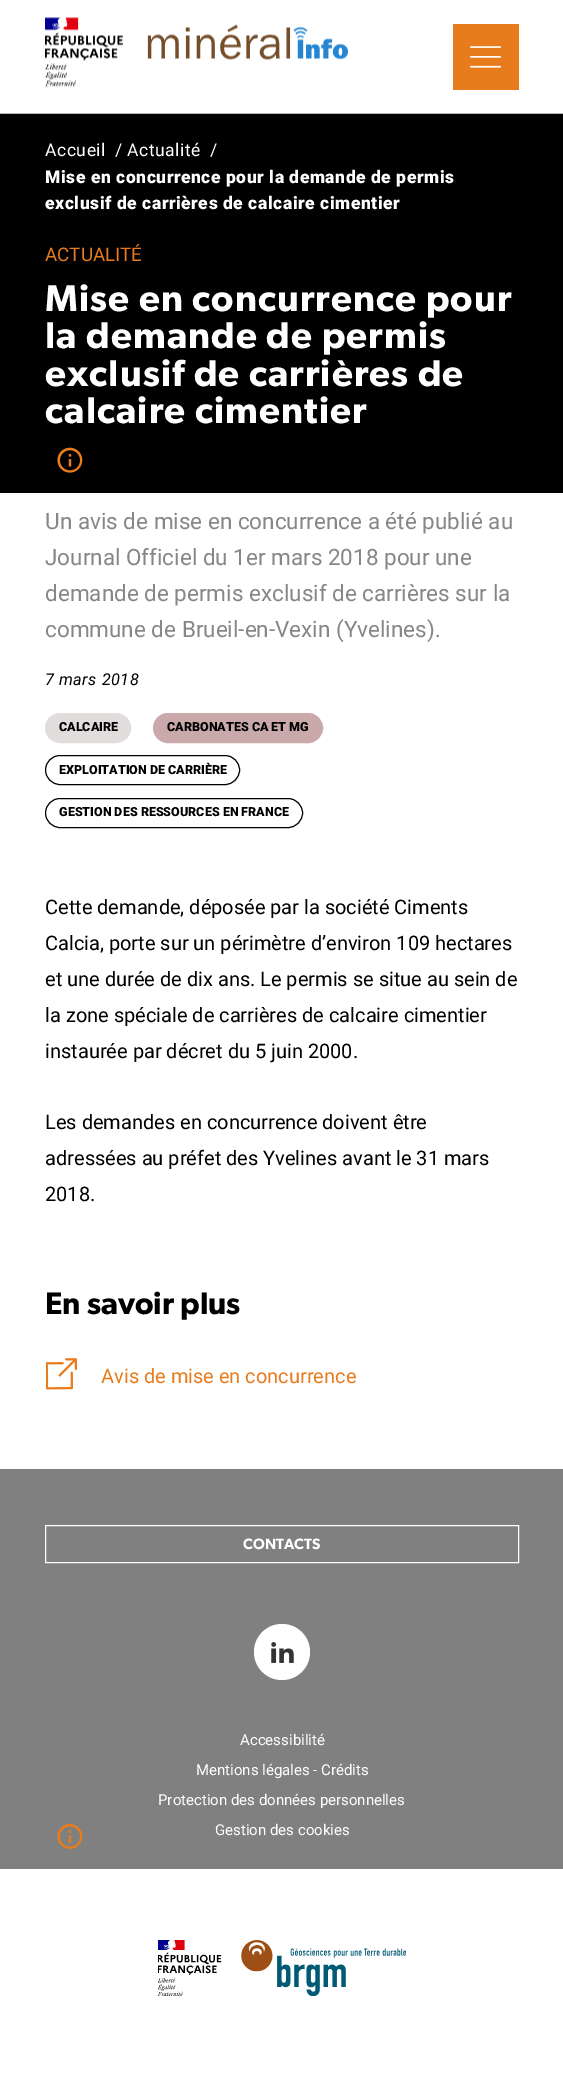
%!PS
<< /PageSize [563 2073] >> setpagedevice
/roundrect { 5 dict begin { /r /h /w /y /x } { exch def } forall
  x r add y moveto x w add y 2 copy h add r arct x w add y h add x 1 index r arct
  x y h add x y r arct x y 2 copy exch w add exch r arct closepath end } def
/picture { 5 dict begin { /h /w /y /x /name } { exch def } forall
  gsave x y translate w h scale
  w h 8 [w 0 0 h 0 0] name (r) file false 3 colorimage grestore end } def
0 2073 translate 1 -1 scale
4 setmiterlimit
1 setgray
0 0 563 2073 rectfill
0.706 setgray
0 113 563 1 rectfill
(img1.rgb) 45 17 303 70 picture
0.91 0.482 0.11 setrgbcolor
453 24 66 66 rectfill
(img2.rgb) 470 46 31 22 picture
0 setgray
0 114 563 379 rectfill
/Roboto-Regular [17.5 0 0 -17.5 0 0] selectfont
1 setgray
45 156 moveto 0.55 0 (Accueil) ashow
115 156 moveto (/) show
127 156 moveto 0.55 0 (Actualité) ashow
210 156 moveto (/) show
/Roboto-Black [17.5 0 0 -17.5 0 0] selectfont
45 183 moveto 0.55 0 (Mise en concurrence pour la demande de permis) ashow
45 209 moveto 0.55 0 (exclusif de carrières de calcaire cimentier) ashow
/Roboto-Regular [18.75 0 0 -18.75 0 0] selectfont
0.91 0.482 0.11 setrgbcolor
45 261 moveto (ACTUALITÉ) show
/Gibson-SemiBold [37.5 0 0 -37.5 0 0] selectfont
1 setgray
45 311 moveto 1.1 0 (Mise en concurrence pour) ashow
45 348 moveto 1.1 0 (la demande de permis) ashow
45 386 moveto 1.1 0 (exclusif de carrières de) ashow
45 423 moveto 1.1 0 (calcaire cimentier) ashow
(img3.rgb) 57 447 26 26 picture
/Roboto-Regular [22.5 0 0 -22.5 0 0] selectfont
0.529 setgray
45 529 moveto (Un avis de mise en concurrence a été publié au) show
45 565 moveto (Journal Officiel du 1er mars 2018 pour une) show
45 601 moveto (demande de permis exclusif de carrières sur la) show
45 637 moveto (commune de Brueil-en-Vexin \(Yvelines\).) show
/Roboto-Italic [16.25 0 0 -16.25 0 0] selectfont
0 setgray
45 685 moveto 0.5 0 (7 mars 2018) ashow
0.882 0.867 0.867 setrgbcolor
45.5 713.5 85 29 14.5 roundrect gsave fill grestore
stroke
/Roboto-Black [12.5 0 0 -12.5 0 0] selectfont
0 setgray
59 731 moveto (CALCAIRE) show
0.788 0.663 0.663 setrgbcolor
153.5 713.5 169 29 14.5 roundrect gsave fill grestore
stroke
0 setgray
167 731 moveto (CARBONATES CA ET MG) show
45.5 755.5 194 29 14.5 roundrect stroke
59 774 moveto (EXPLOITATION DE CARRIÈRE) show
45.5 798.5 257 29 14.5 roundrect stroke
59 816 moveto (GESTION DES RESSOURCES EN FRANCE) show
/Roboto-Regular [20 0 0 -20 0 0] selectfont
45 914 moveto (Cette demande, déposée par la société Ciments) show
45 950 moveto (Calcia, porte sur un périmètre d’environ 109 hectares) show
45 986 moveto (et une durée de dix ans. Le permis se situe au sein de) show
45 1022 moveto (la zone spéciale de carrières de calcaire cimentier) show
45 1058 moveto (instaurée par décret du 5 juin 2000.) show
45 1129 moveto (Les demandes en concurrence doivent être) show
45 1165 moveto (adressées au préfet des Yvelines avant le 31 mars) show
45 1201 moveto (2018.) show
/Gibson-SemiBold [31.25 0 0 -31.25 0 0] selectfont
45 1314 moveto (En savoir plus) show
(img4.rgb) 46 1358 32 32 picture
/Roboto-Regular [20 0 0 -20 0 0] selectfont
0.91 0.482 0.11 setrgbcolor
101 1383 moveto (Avis de mise en concurrence) show
0.502 setgray
0 1469 563 400 rectfill
(img5.rgb) 57 1823 26 26 picture
1 setgray
45.5 1525.5 473 37 rectstroke
/Gibson-SemiBold [15 0 0 -15 0 0] selectfont
243 1549 moveto (CONTACTS) show
newpath 282 1652 28 0 360 arc closepath fill
(img6.rgb) 271 1642 23 21 picture
/Roboto-Regular [15 0 0 -15 0 0] selectfont
240 1745 moveto (Accessibilité) show
196 1775 moveto (Mentions légales - Crédits) show
158 1805 moveto (Protection des données personnelles) show
215 1835 moveto (Gestion des cookies) show
(img7.rgb) 158 1940 248 56 picture
showpage
